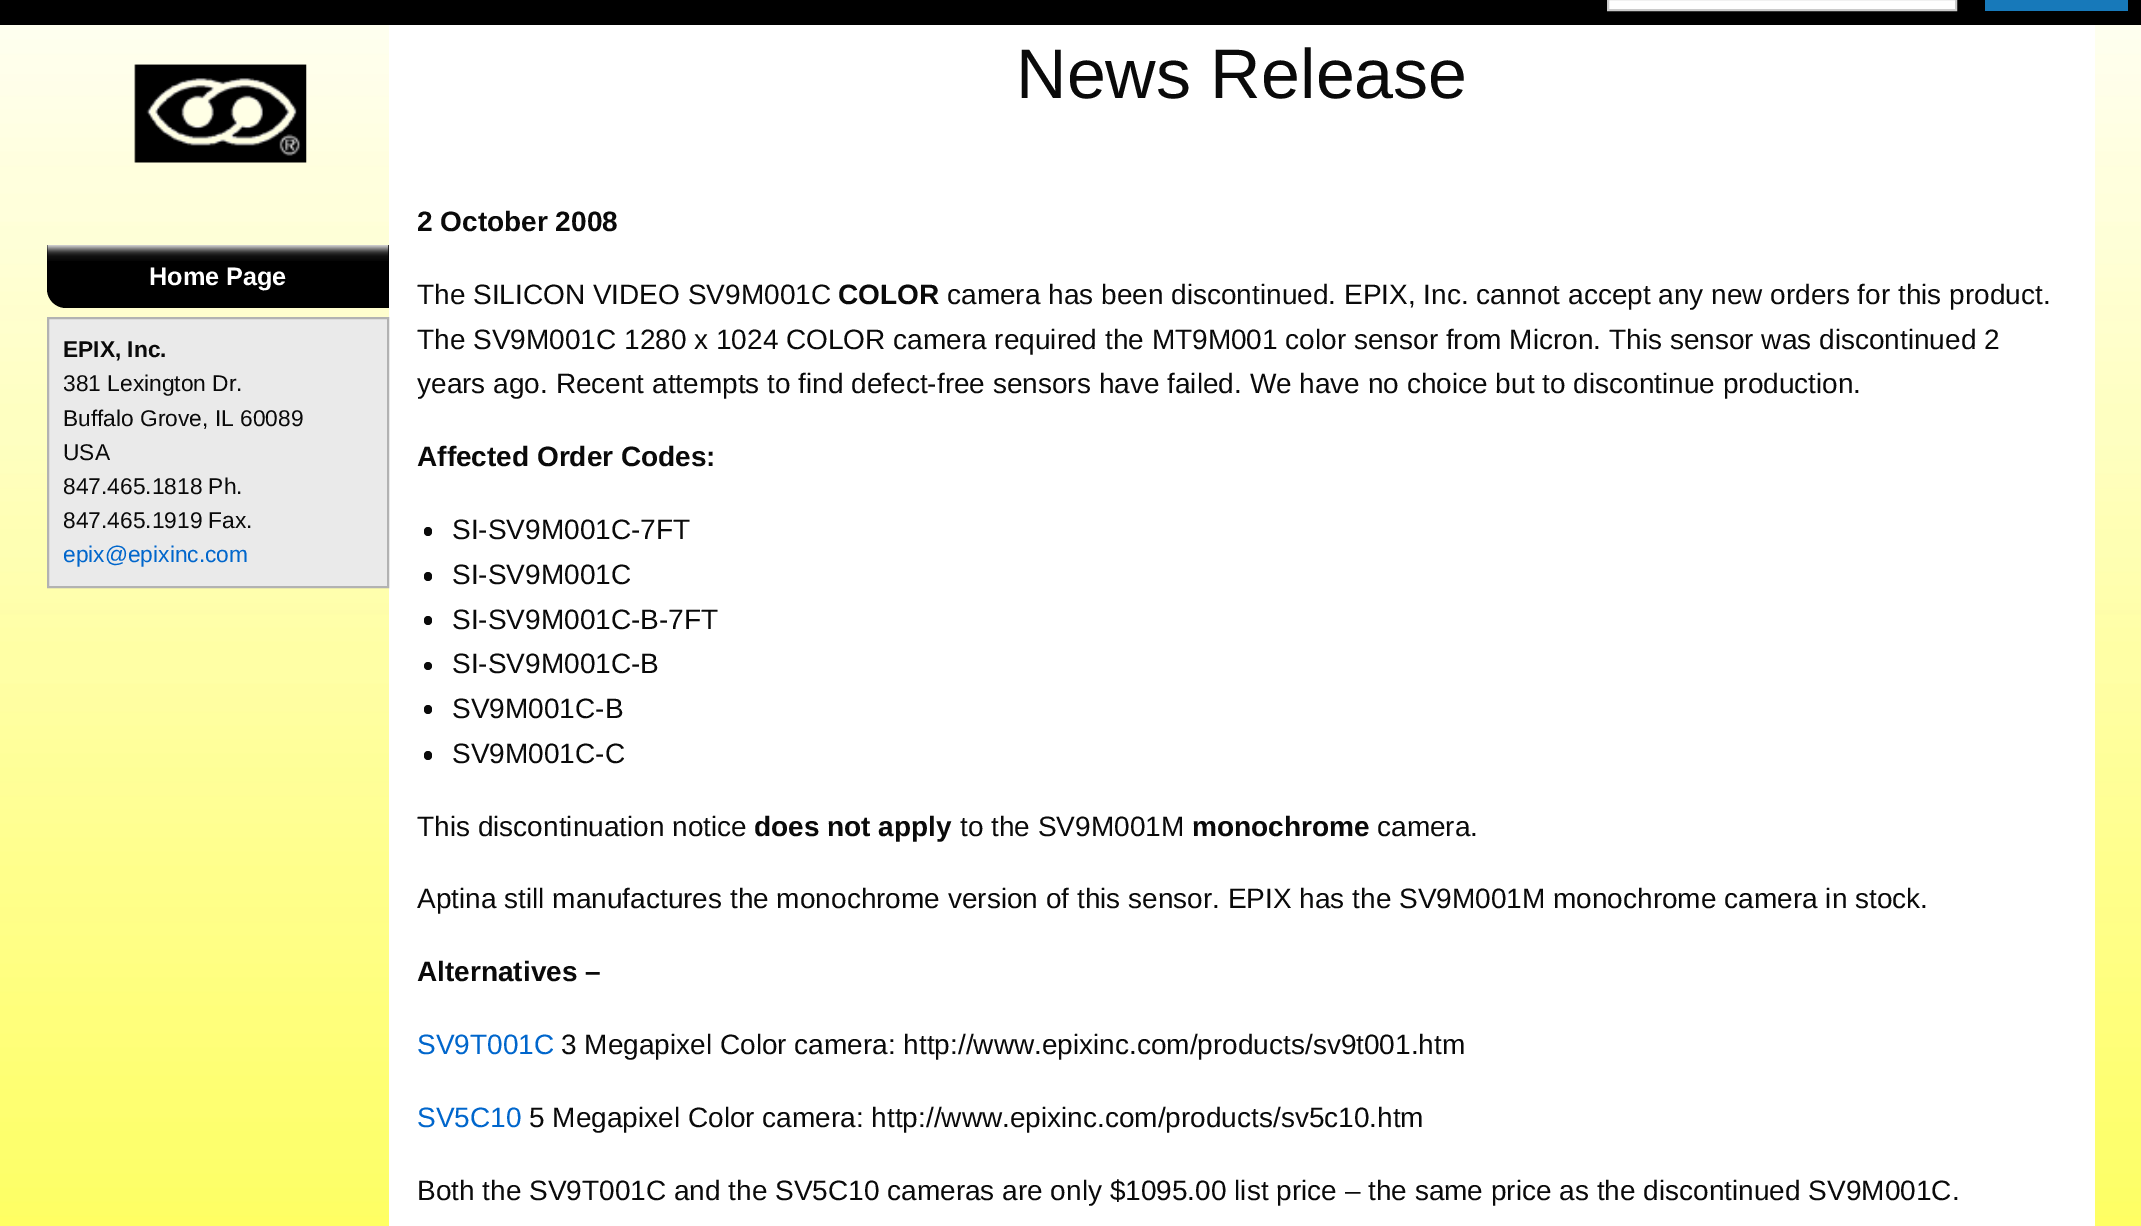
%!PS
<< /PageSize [2141 1226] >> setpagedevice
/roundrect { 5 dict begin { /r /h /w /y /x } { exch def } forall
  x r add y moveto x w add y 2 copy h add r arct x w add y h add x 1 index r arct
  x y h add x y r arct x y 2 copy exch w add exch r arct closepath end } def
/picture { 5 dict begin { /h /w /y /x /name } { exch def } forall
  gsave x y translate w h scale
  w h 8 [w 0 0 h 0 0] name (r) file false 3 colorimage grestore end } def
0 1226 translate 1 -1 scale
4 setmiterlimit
1 setgray
0 0 2141 1226 rectfill
(img1.rgb) 0 25 2141 1201 picture
0 setgray
0 0 2141 25 rectfill
0.996 setgray
newpath 1608 -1 moveto 1956 -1 lineto 1956 10 lineto 1608 10 lineto closepath gsave fill grestore
0.792 setgray
2 setlinewidth
stroke
0.09 0.475 0.729 setrgbcolor
1985 0 143 11 rectfill
(img2.rgb) 134 64 173 99 picture
1 setgray
389 25 1706 1201 rectfill
/LiberationSans-Regular [70 0 0 -70 0 0] selectfont
0.039 setgray
1016 98 moveto (News Release) show
0 setgray
newpath 47 245 moveto 389 245 lineto 389 308 lineto 66 308 lineto 55.5 308 47 299.5 47 289 curveto closepath fill
(img3.rgb) 47 245 342 16 picture
/LiberationSans-Bold [25.25 0 0 -25.25 0 0] selectfont
1 setgray
149 285 moveto (Home Page) show
0.918 setgray
newpath 48 318 moveto 388 318 lineto 388 587 lineto 48 587 lineto closepath gsave fill grestore
0.698 setgray
stroke
/LiberationSans-Bold [22.75 0 0 -22.75 0 0] selectfont
0.039 setgray
63 357 moveto (EPIX, Inc.) show
/LiberationSans-Regular [22.75 0 0 -22.75 0 0] selectfont
63 391 moveto (381 Lexington Dr.) show
63 426 moveto (Buffalo Grove, IL 60089) show
63 460 moveto (USA) show
63 494 moveto (847.465.1818 Ph.) show
63 528 moveto (847.465.1919 Fax.) show
0 0.4 0.8 setrgbcolor
63 562 moveto (epix@epixinc.com) show
/LiberationSans-Bold [28 0 0 -28 0 0] selectfont
0.039 setgray
417 231 moveto (2 October 2008) show
/LiberationSans-Regular [28 0 0 -28 0 0] selectfont
417 304 moveto (The SILICON VIDEO SV9M001C) show
/LiberationSans-Bold [28 0 0 -28 0 0] selectfont
838 304 moveto (COLOR) show
/LiberationSans-Regular [28 0 0 -28 0 0] selectfont
947 304 moveto (camera has been discontinued. EPIX, Inc. cannot accept any new orders for this product.) show
417 349 moveto (The SV9M001C 1280 x 1024 COLOR camera required the MT9M001 color sensor from Micron. This sensor was discontinued 2) show
417 393 moveto (years ago. Recent attempts to find defect-free sensors have failed. We have no choice but to discontinue production.) show
/LiberationSans-Bold [28 0 0 -28 0 0] selectfont
417 466 moveto (Affected Order Codes:) show
424 527 8 9 4 roundrect fill
/LiberationSans-Regular [28 0 0 -28 0 0] selectfont
452 539 moveto (SI-SV9M001C-7FT) show
424 572 8 9 4 roundrect fill
452 584 moveto (SI-SV9M001C) show
424 616 8 9 4 roundrect fill
452 629 moveto (SI-SV9M001C-B-7FT) show
newpath 428 666 4 0 360 arc closepath fill
452 673 moveto (SI-SV9M001C-B) show
424 705 8 9 4 roundrect fill
452 718 moveto (SV9M001C-B) show
424 751 8 9 4 roundrect fill
452 763 moveto (SV9M001C-C) show
417 836 moveto (This discontinuation notice) show
/LiberationSans-Bold [28 0 0 -28 0 0] selectfont
754 836 moveto (does not apply) show
/LiberationSans-Regular [28 0 0 -28 0 0] selectfont
960 836 moveto (to the SV9M001M) show
/LiberationSans-Bold [28 0 0 -28 0 0] selectfont
1192 836 moveto (monochrome) show
/LiberationSans-Regular [28 0 0 -28 0 0] selectfont
1377 836 moveto (camera.) show
417 908 moveto (Aptina still manufactures the monochrome version of this sensor. EPIX has the SV9M001M monochrome camera in stock.) show
/LiberationSans-Bold [28 0 0 -28 0 0] selectfont
417 981 moveto (Alternatives –) show
/LiberationSans-Regular [28 0 0 -28 0 0] selectfont
0 0.4 0.8 setrgbcolor
417 1054 moveto (SV9T001C) show
0.039 setgray
561 1054 moveto (3 Megapixel Color camera: http://www.epixinc.com/products/sv9t001.htm) show
0 0.4 0.8 setrgbcolor
417 1127 moveto (SV5C10) show
0.039 setgray
529 1127 moveto (5 Megapixel Color camera: http://www.epixinc.com/products/sv5c10.htm) show
417 1200 moveto (Both the SV9T001C and the SV5C10 cameras are only $1095.00 list price – the same price as the discontinued SV9M001C.) show
showpage
